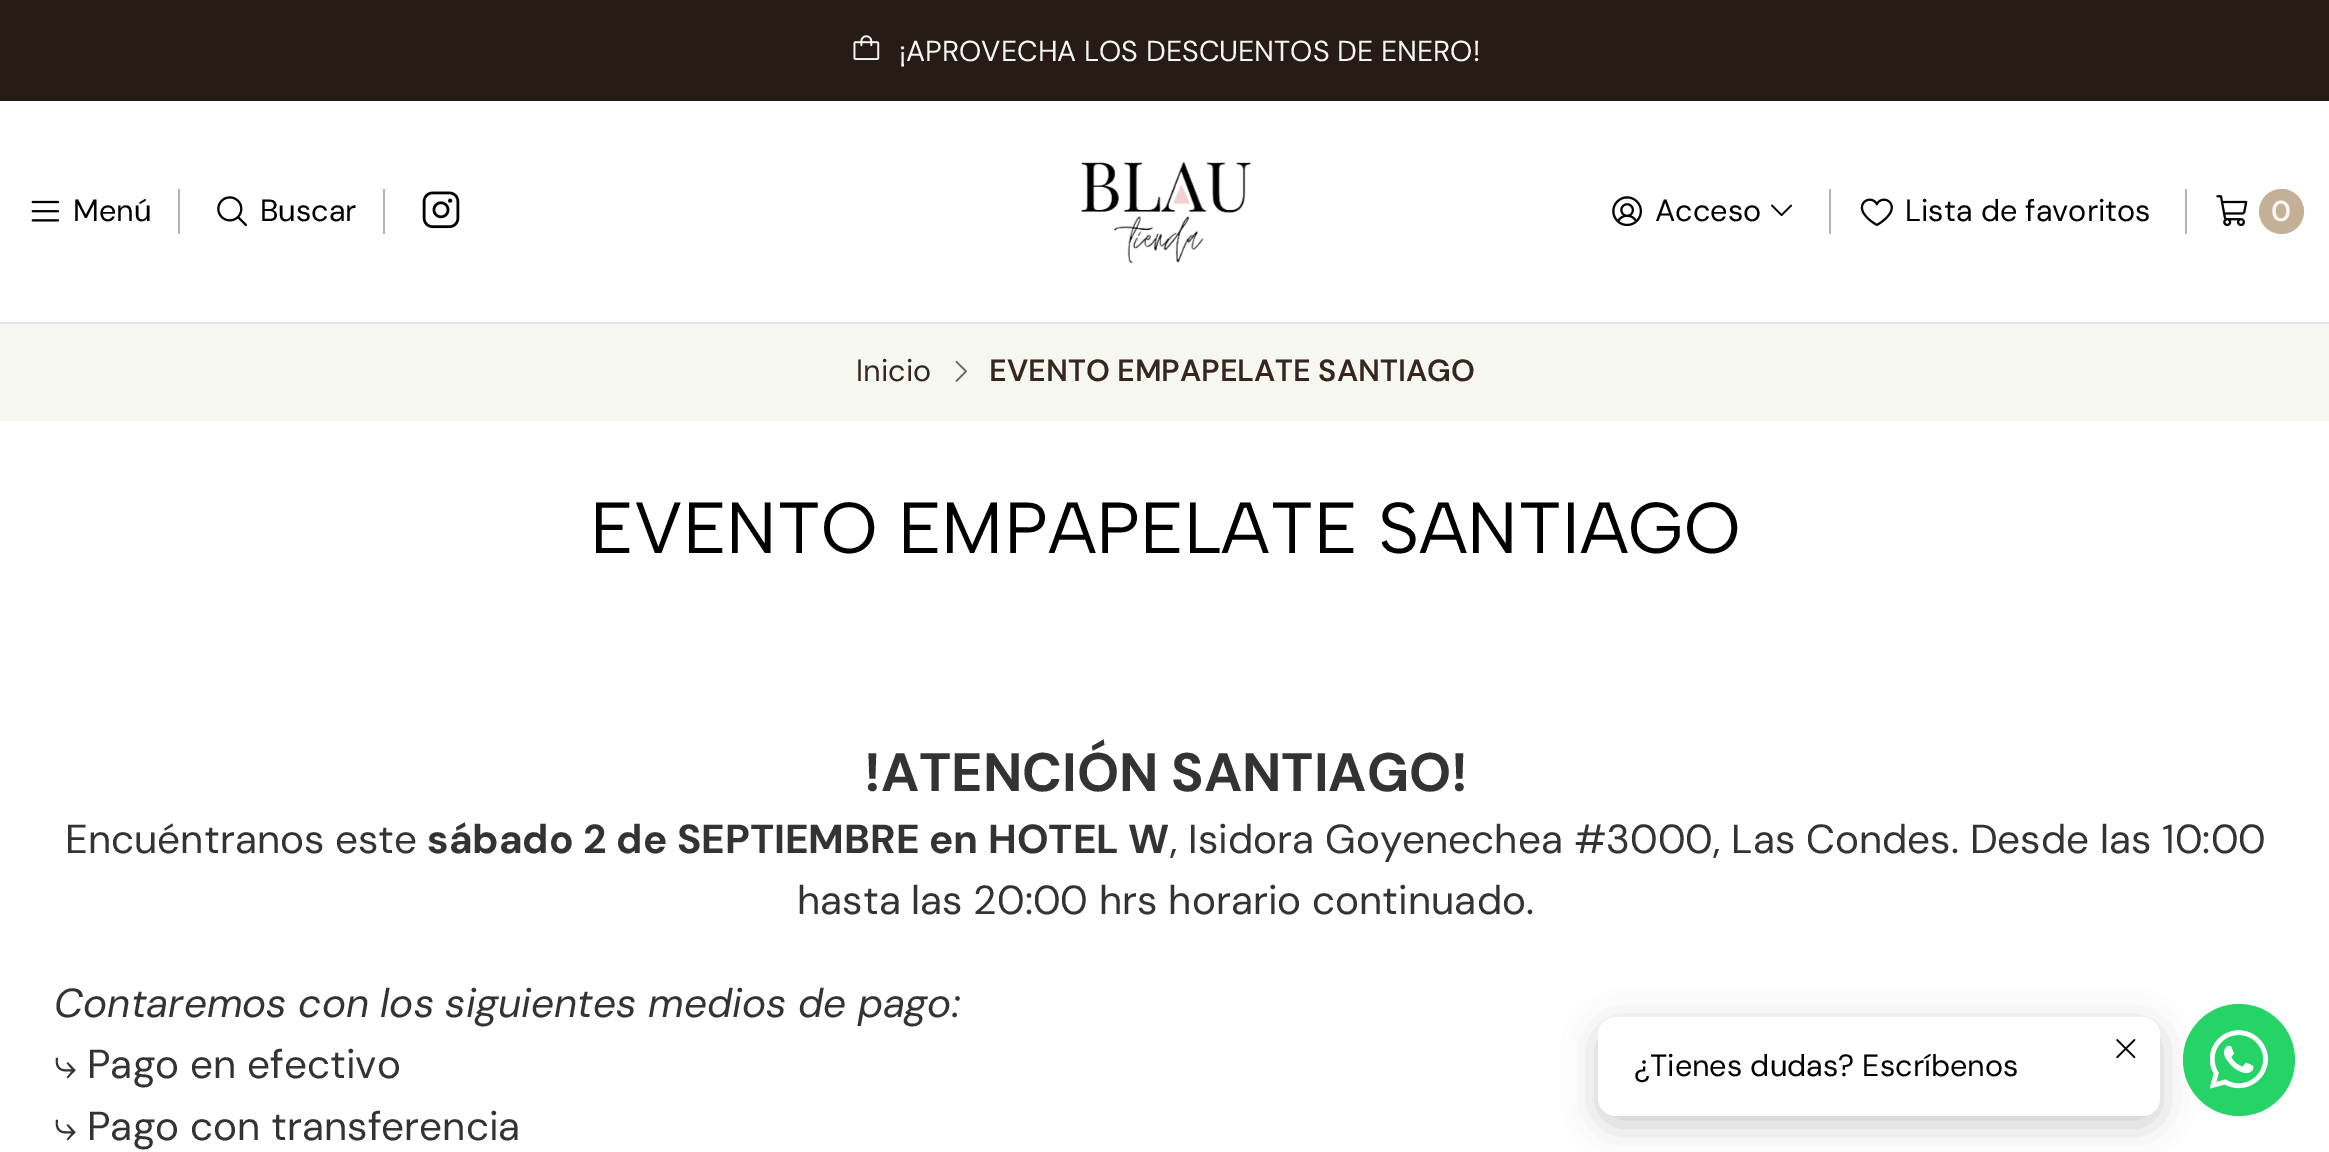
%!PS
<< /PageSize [2329 1152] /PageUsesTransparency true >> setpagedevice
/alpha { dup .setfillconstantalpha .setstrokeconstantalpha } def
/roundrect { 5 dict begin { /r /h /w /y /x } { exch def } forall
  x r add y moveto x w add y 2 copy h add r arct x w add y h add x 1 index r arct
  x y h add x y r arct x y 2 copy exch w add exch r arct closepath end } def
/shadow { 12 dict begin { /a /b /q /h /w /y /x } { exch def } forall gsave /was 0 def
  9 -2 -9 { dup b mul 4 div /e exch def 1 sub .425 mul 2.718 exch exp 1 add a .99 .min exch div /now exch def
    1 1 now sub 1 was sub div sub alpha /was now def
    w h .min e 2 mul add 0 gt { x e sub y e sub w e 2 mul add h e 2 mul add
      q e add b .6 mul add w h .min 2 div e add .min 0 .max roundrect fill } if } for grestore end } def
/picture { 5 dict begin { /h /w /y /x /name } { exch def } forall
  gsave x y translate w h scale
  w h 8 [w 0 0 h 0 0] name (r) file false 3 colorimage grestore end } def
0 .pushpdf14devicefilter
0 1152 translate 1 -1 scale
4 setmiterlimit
1 setgray
0 0 2329 1152 rectfill
0.149 0.11 0.082 setrgbcolor
0 0 2329 101 rectfill
(img1.rgb) 853 35 27 25 picture
/DMSans-Regular [28.8 0 0 -28.8 0 0] selectfont
0.969 0.969 0.949 setrgbcolor
899 61 moveto (¡APROVECHA LOS DESCUENTOS DE ENERO!) show
0.902 setgray
0 322 2329 2 rectfill
(img2.rgb) 31 200 29 22 picture
/DMSans-Regular [30.6 0 0 -30.6 0 0] selectfont
0 setgray
73 221 moveto (Menú) show
0.702 setgray
178 189 2 45 rectfill
(img3.rgb) 217 196 30 31 picture
0 setgray
260 221 moveto (Buscar) show
0.702 setgray
383 189 2 45 rectfill
(img4.rgb) 422 191 38 38 picture
(img5.rgb) 1081 162 170 102 picture
1829 189 2 45 rectfill
(img6.rgb) 1612 196 30 31 picture
0 setgray
1655 221 moveto (Acceso) show
(img7.rgb) 1771 204 22 12 picture
0.702 setgray
2185 189 2 45 rectfill
(img8.rgb) 1860 198 33 29 picture
0 setgray
1905 221 moveto (Lista de favoritos) show
(img9.rgb) 2216 195 32 32 picture
0.769 0.69 0.588 setrgbcolor
newpath 2281.5 211.5 22.5 0 360 arc closepath fill
/DMSans-SemiBold [28.8 0 0 -28.8 0 0] selectfont
0.969 0.969 0.949 setrgbcolor
2271 221 moveto (0) show
0 324 2329 97 rectfill
/DMSans-Regular [30.6 0 0 -30.6 0 0] selectfont
0.208 0.153 0.114 setrgbcolor
856 381 moveto (Inicio) show
(img10.rgb) 955 360 12 22 picture
/DMSans-SemiBold [30.6 0 0 -30.6 0 0] selectfont
989 381 moveto (EVENTO EMPAPELATE SANTIAGO) show
/AlbertSans-Regular [72 0 0 -72 0 0] selectfont
0 setgray
590 553 moveto (EVENTO EMPAPELATE SANTIAGO) show
/DMSans-Bold [54 0 0 -54 0 0] selectfont
0.2 setgray
864 791 moveto (!ATENCIÓN SANTIAGO!) show
/DMSans-Regular [40.5 0 0 -40.5 0 0] selectfont
65 853 moveto (Encuéntranos este) show
/DMSans-Bold [40.5 0 0 -40.5 0 0] selectfont
427 853 moveto (sábado 2 de SEPTIEMBRE en HOTEL W) show
/DMSans-Regular [40.5 0 0 -40.5 0 0] selectfont
1170 853 moveto (, Isidora Goyenechea #3000, Las Condes. Desde las 10:00) show
797 914 moveto (hasta las 20:00 hrs horario continuado.) show
/DMSans-Italic [40.5 0 0 -40.5 0 0] selectfont
54 1017 moveto (Contaremos con los siguientes medios de pago:) show
/FreeSerif-Regular [40.5 0 0 -40.5 0 0] selectfont
54 1078 moveto (⤷) show
/DMSans-Regular [40.5 0 0 -40.5 0 0] selectfont
87 1078 moveto (Pago en efectivo) show
/FreeSerif-Regular [40.5 0 0 -40.5 0 0] selectfont
54 1140 moveto (⤷) show
/DMSans-Regular [40.5 0 0 -40.5 0 0] selectfont
87 1140 moveto (Pago con transferencia) show
0 setgray
1598 1026 562 99 18 17 0.2 shadow
1 setgray
1598 1017 562 99 18 roundrect fill
(img11.rgb) 2116 1039 20 20 picture
/DMSans-Regular [30.6 0 0 -30.6 0 0] selectfont
0 setgray
1634 1076 moveto (¿Tienes dudas? Escríbenos) show
0.145 0.827 0.4 setrgbcolor
newpath 2239 1060 56 0 360 arc closepath fill
(img12.rgb) 2210 1030 58 59 picture
.poppdf14devicefilter showpage
